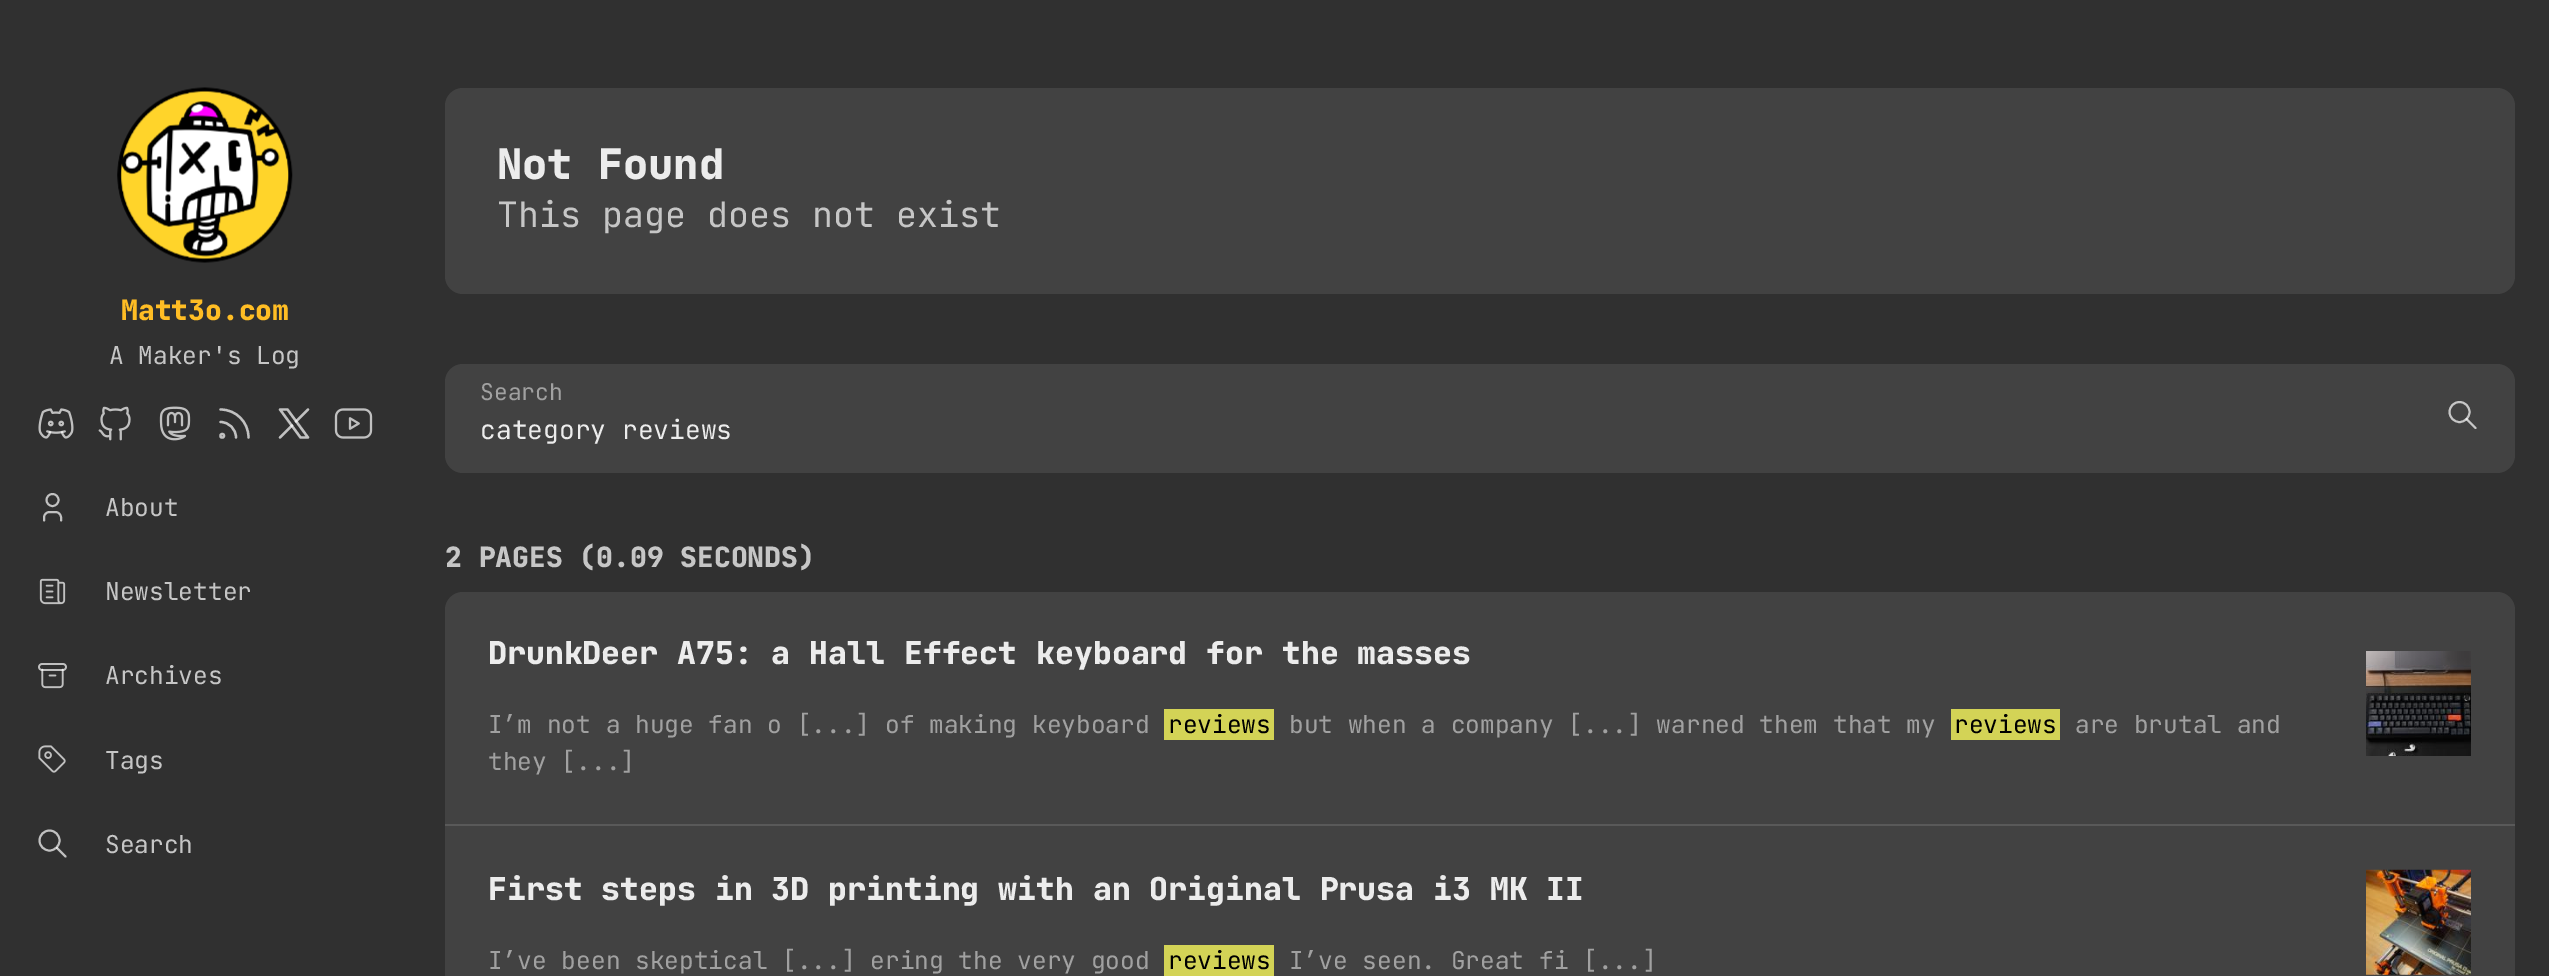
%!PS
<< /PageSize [2549 976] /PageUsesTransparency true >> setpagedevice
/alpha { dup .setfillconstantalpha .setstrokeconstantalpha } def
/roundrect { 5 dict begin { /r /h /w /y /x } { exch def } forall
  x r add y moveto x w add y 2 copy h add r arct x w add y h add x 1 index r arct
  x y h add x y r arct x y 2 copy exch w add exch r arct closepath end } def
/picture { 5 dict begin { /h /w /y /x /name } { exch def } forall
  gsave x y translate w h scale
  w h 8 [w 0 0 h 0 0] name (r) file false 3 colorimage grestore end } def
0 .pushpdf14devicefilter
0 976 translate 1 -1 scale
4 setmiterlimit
0.188 setgray
0 0 2549 976 rectfill
(img1.rgb) 117 87 176 176 picture
/JetBrainsMono-ExtraBold [28 0 0 -28 0 0] selectfont
1 0.741 0.141 setrgbcolor
121 320 moveto (Matt3o.com) show
/JetBrainsMono-Regular [24.5 0 0 -24.5 0 0] selectfont
0.776 setgray
109 364 moveto (A Maker's Log) show
(img2.rgb) 38 408 36 31 picture
(img3.rgb) 98 406 33 35 picture
(img4.rgb) 159 406 32 35 picture
0.757 setgray
2.3 setlinewidth
newpath 222.2 435.8 1.8 0 360 arc closepath stroke
1 setlinecap
1 setlinejoin
newpath 220.5 409.5 moveto 236 409.5 248.5 422 248.5 437.5 curveto 220.5 422 moveto 229 422 236 429 236 437.5 curveto stroke
newpath 280 409.5 moveto 300.5 437.5 lineto 308 437.5 lineto 287.5 409.5 lineto closepath stroke
0.7 alpha
1 setgray
newpath 280 437.5 moveto 292 425.5 lineto 296 421.5 moveto 308 409.5 lineto stroke
1 alpha
(img5.rgb) 334 408 39 31 picture
0.757 setgray
1.9 setlinewidth
0 setlinecap
0 setlinejoin
newpath 52.5 500 6 0 360 arc closepath stroke
1 setlinecap
1 setlinejoin
newpath 44 520.5 moveto 44 517.5 lineto 44 514.5 46.5 512 49.5 512 curveto 55.5 512 lineto 58.5 512 61 514.5 61 517.5 curveto 61 520.5 lineto stroke
0.776 setgray
105 516 moveto (About) show
(img6.rgb) 39 578 27 27 picture
105 600 moveto (Newsletter) show
(img7.rgb) 38 663 29 26 picture
105 684 moveto (Archives) show
(img8.rgb) 38 745 28 28 picture
105 769 moveto (Tags) show
0.757 setgray
0 setlinecap
0 setlinejoin
newpath 49.5 840.5 10 0 360 arc closepath stroke
0.7 alpha
1 setgray
1 setlinecap
1 setlinejoin
newpath 65.5 856.5 moveto 57 848 lineto stroke
1 alpha
0.776 setgray
105 853 moveto (Search) show
0.259 setgray
445 88 2070 206 18 roundrect fill
/JetBrainsMono-ExtraBold [42 0 0 -42 0 0] selectfont
0.925 setgray
497 179 moveto (Not Found) show
/JetBrainsMono-Regular [35 0 0 -35 0 0] selectfont
0.776 setgray
497 227 moveto (This page does not exist) show
0.259 setgray
445 364 2070 109 18 roundrect fill
/JetBrainsMono-Regular [23 0 0 -23 0 0] selectfont
0.631 setgray
480 400 moveto (Search) show
/JetBrainsMono-Regular [26.25 0 0 -26.25 0 0] selectfont
0.925 setgray
480 439 moveto (category reviews) show
0.776 setgray
0 setlinecap
0 setlinejoin
newpath 2459.5 412 10 0 360 arc closepath stroke
0.7 alpha
1 setgray
1 setlinecap
1 setlinejoin
newpath 2475.5 428 moveto 2466.5 419 lineto stroke
/JetBrainsMono-ExtraBold [28 0 0 -28 0 0] selectfont
1 alpha
0.776 setgray
445 567 moveto (2 PAGES \(0.09 SECONDS\)) show
0.259 setgray
445 592 2070 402 18 roundrect fill
0.349 setgray
445 824 2070 2 rectfill
/JetBrainsMono-ExtraBold [31.5 0 0 -31.5 0 0] selectfont
0.925 setgray
488 664 moveto (DrunkDeer A75: a Hall Effect keyboard for the masses) show
/JetBrainsMono-Regular [24.5 0 0 -24.5 0 0] selectfont
0.631 setgray
488 733 moveto (I’m not a huge fan o [...] of making keyboard) show
0.827 0.827 0.337 setrgbcolor
1164 709 110 31 rectfill
0 setgray
1168 733 moveto (reviews) show
0.631 setgray
1289 733 moveto (but when a company [...] warned them that my) show
0.827 0.827 0.337 setrgbcolor
1951 709 109 31 rectfill
0 setgray
1954 733 moveto (reviews) show
0.631 setgray
2075 733 moveto (are brutal and) show
488 770 moveto (they [...]) show
(img9.rgb) 2366 651 105 105 picture
/JetBrainsMono-ExtraBold [31.5 0 0 -31.5 0 0] selectfont
0.925 setgray
488 900 moveto (First steps in 3D printing with an Original Prusa i3 MK II) show
/JetBrainsMono-Regular [24.5 0 0 -24.5 0 0] selectfont
0.631 setgray
488 969 moveto (I’ve been skeptical [...] ering the very good) show
0.827 0.827 0.337 setrgbcolor
1164 945 110 31 rectfill
0 setgray
1168 969 moveto (reviews) show
0.631 setgray
1289 969 moveto (I’ve seen. Great fi [...]) show
(img10.rgb) 2366 869 105 106 picture
.poppdf14devicefilter showpage
